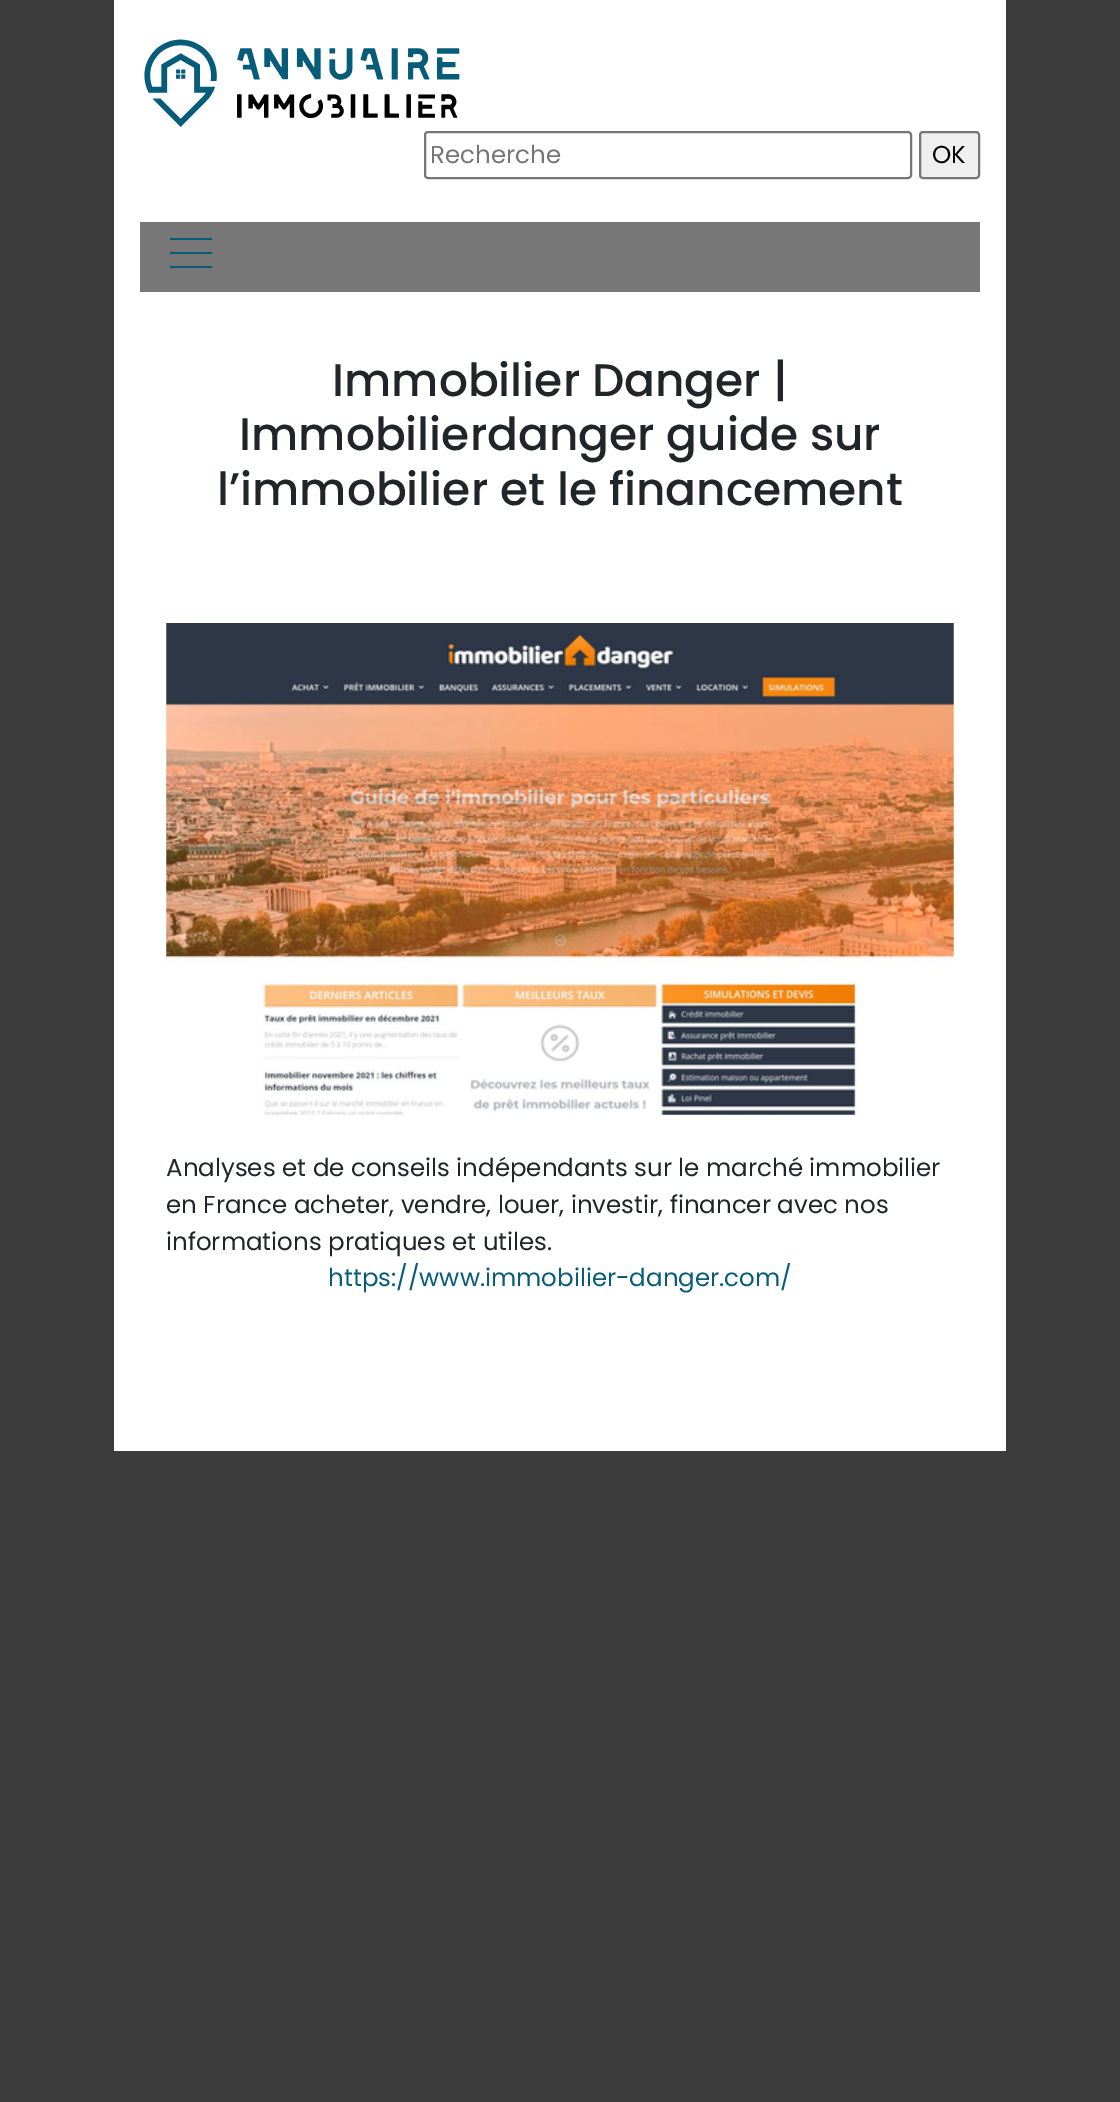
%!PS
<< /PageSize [1120 2102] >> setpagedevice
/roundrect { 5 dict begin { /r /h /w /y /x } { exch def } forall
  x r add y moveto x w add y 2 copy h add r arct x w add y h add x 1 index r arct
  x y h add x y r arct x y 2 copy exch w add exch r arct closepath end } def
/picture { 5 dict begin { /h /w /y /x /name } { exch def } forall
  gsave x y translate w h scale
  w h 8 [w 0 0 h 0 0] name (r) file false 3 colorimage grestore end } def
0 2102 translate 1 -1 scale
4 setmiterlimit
0.235 setgray
0 0 1120 2102 rectfill
1 setgray
114 0 892 1451 rectfill
(img1.rgb) 144 39 316 88 picture
0.463 setgray
2 setlinewidth
425 132 486 46 3 roundrect stroke
/Poppins-Regular [24.5 0 0 -24.5 0 0] selectfont
0.459 setgray
430 163 moveto (Recherche) show
0.937 setgray
920 132 59 46 3 roundrect gsave fill grestore
0.463 setgray
stroke
0 setgray
932 163 moveto (OK) show
0.467 setgray
140 222 840 70 rectfill
0.027 0.365 0.475 setrgbcolor
170 238 42 2 rectfill
170 252 42 2 rectfill
170 266 42 2 rectfill
/Poppins-Medium [45.5 0 0 -45.5 0 0] selectfont
0.129 0.145 0.161 setrgbcolor
332 396 moveto (Immobilier Danger |) show
239 450 moveto (Immobilierdanger guide sur) show
217 505 moveto (l’immobilier et le financement) show
(img2.rgb) 166 623 788 492 picture
/Poppins-Regular [24.5 0 0 -24.5 0 0] selectfont
166 1176 moveto (Analyses et de conseils indépendants sur le marché immobilier) show
166 1213 moveto (en France acheter, vendre, louer, investir, financer avec nos) show
166 1250 moveto (informations pratiques et utiles.) show
0.027 0.365 0.475 setrgbcolor
328 1286 moveto (https://www.immobilier-danger.com/) show
showpage
